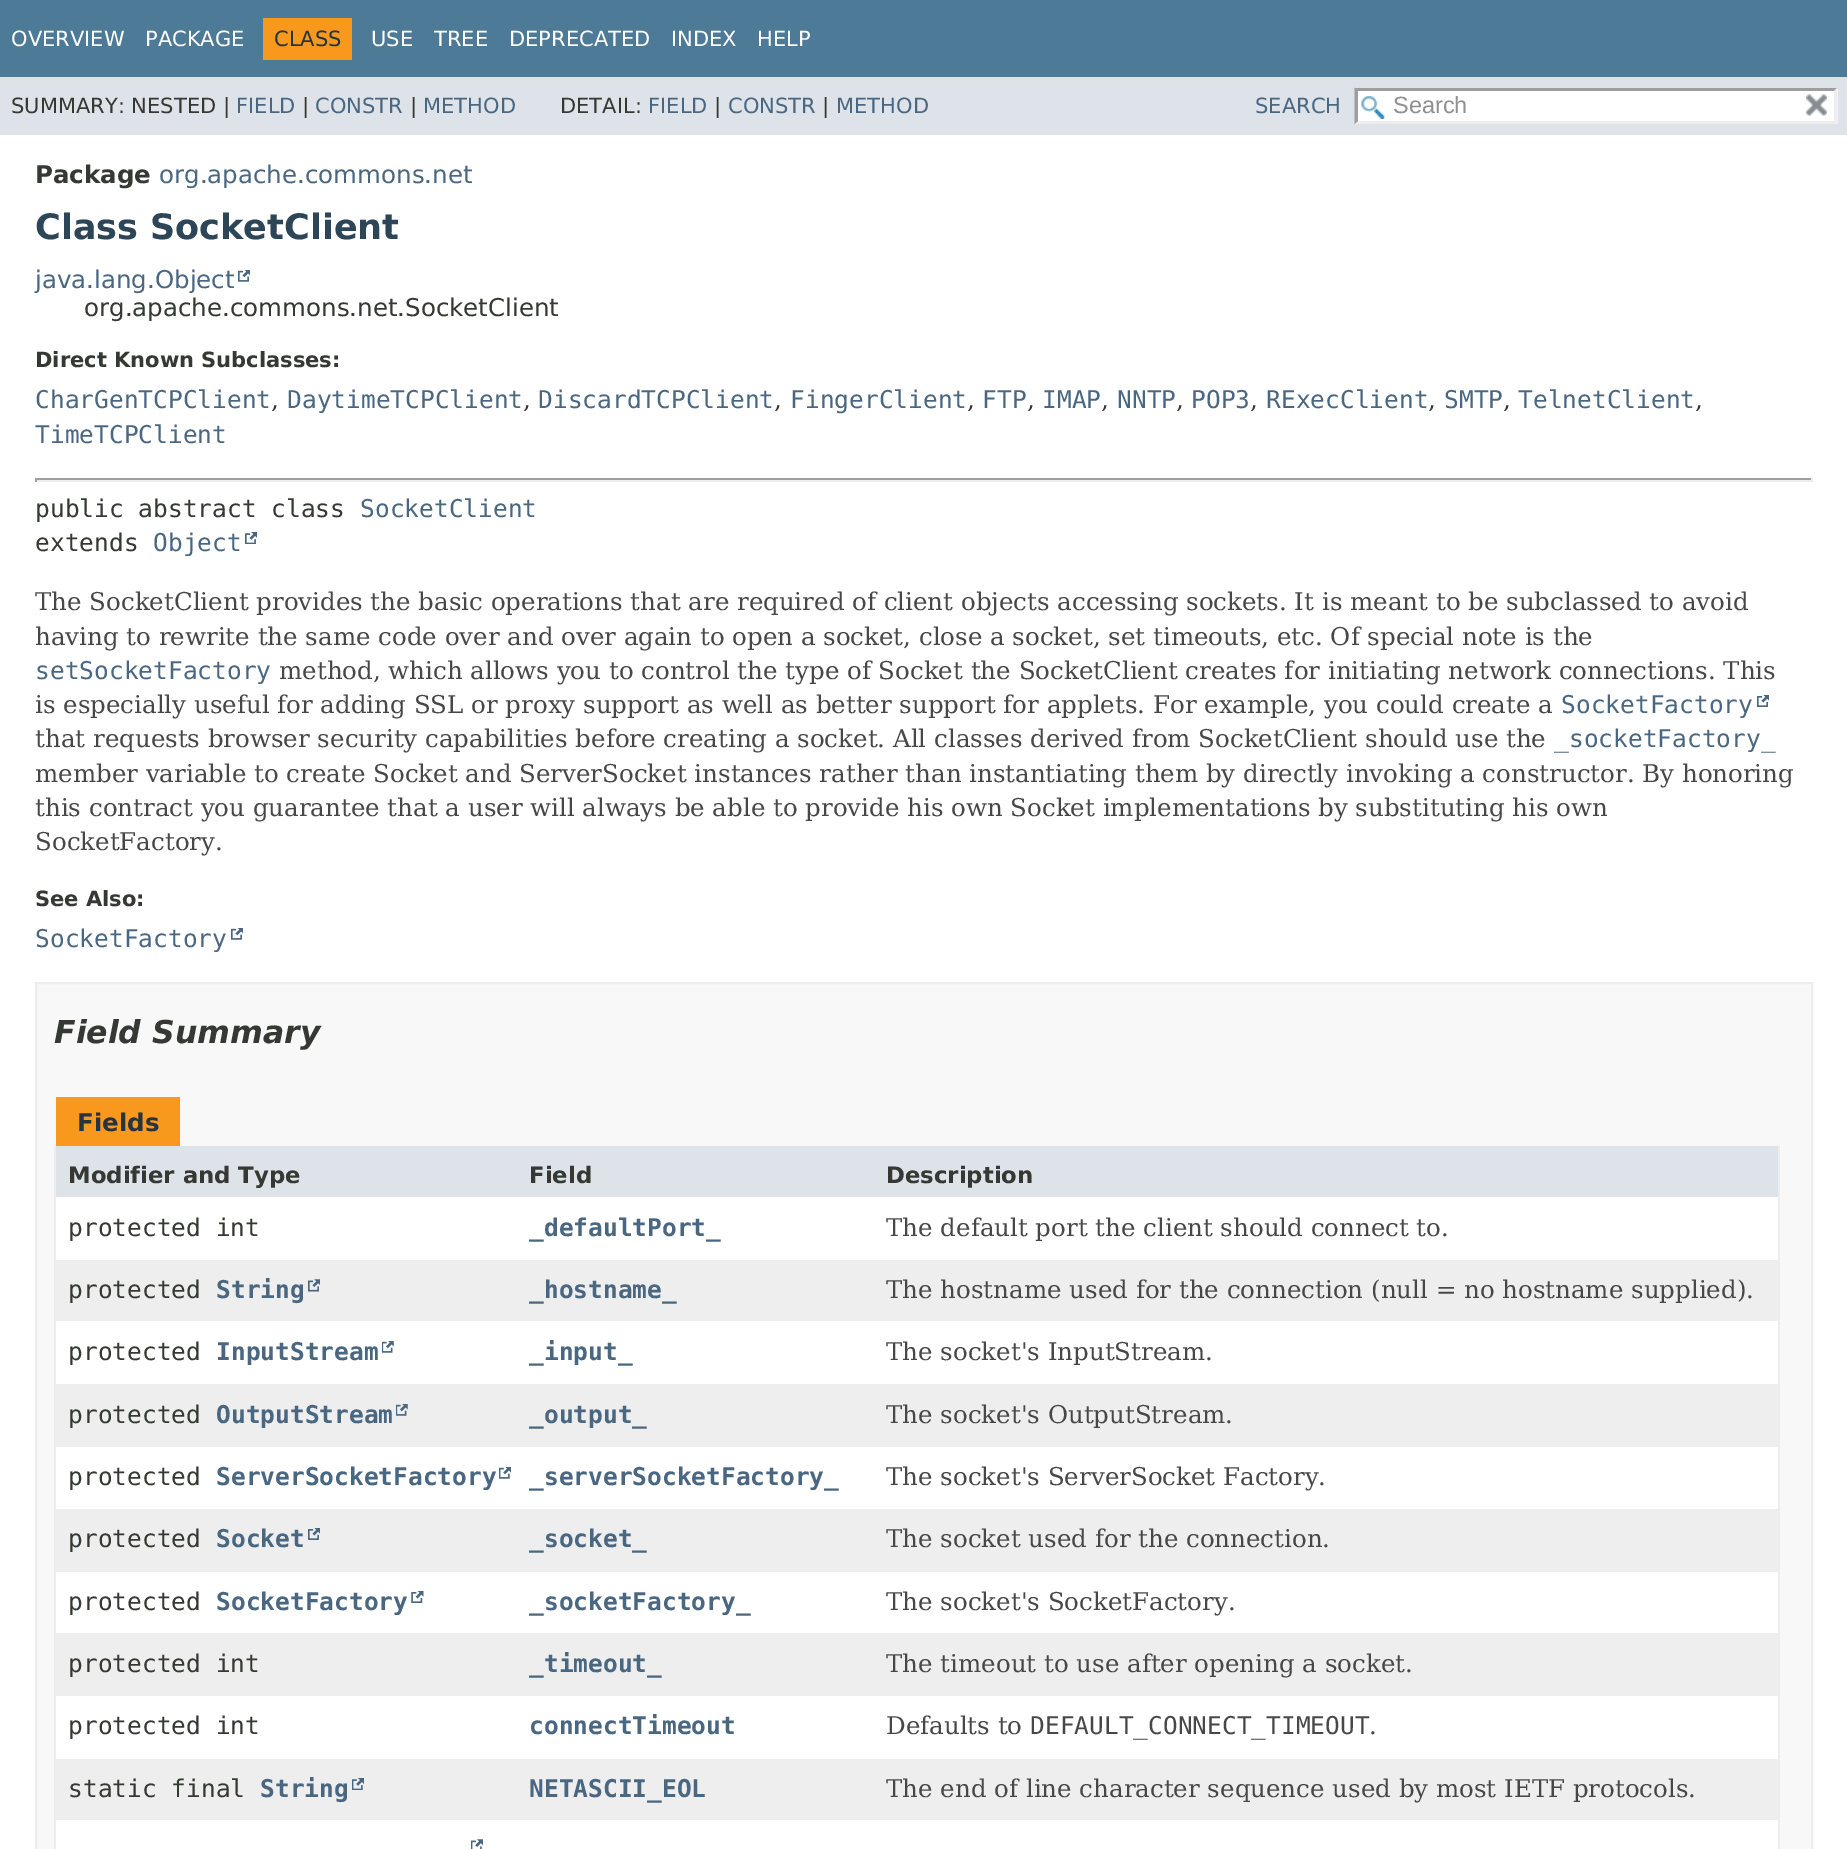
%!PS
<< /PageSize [1847 1849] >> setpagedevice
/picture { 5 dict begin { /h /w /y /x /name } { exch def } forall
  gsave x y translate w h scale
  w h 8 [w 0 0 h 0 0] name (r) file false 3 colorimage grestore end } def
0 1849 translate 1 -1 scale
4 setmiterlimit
1 setgray
0 0 1847 1849 rectfill
0.302 0.478 0.592 setrgbcolor
0 0 1847 77 rectfill
/DejaVuSans-Regular [21 0 0 -21 0 0] selectfont
1 setgray
11 46 moveto (OVERVIEW) show
145 46 moveto (PACKAGE) show
0.973 0.596 0.114 setrgbcolor
263 18 89 42 rectfill
0.145 0.204 0.255 setrgbcolor
274 46 moveto (CLASS) show
1 setgray
371 46 moveto (USE) show
434 46 moveto (TREE) show
509 46 moveto (DEPRECATED) show
671 46 moveto (INDEX) show
757 46 moveto (HELP) show
0.871 0.89 0.914 setrgbcolor
0 77 1847 58 rectfill
0.208 0.22 0.2 setrgbcolor
11 113 moveto (SUMMARY: NESTED |) show
0.29 0.404 0.51 setrgbcolor
236 113 moveto (FIELD) show
0.208 0.22 0.2 setrgbcolor
302 113 moveto (|) show
0.29 0.404 0.51 setrgbcolor
315 113 moveto (CONSTR) show
0.208 0.22 0.2 setrgbcolor
410 113 moveto (|) show
0.29 0.404 0.51 setrgbcolor
423 113 moveto (METHOD) show
0.208 0.22 0.2 setrgbcolor
560 113 moveto (DETAIL:) show
0.29 0.404 0.51 setrgbcolor
648 113 moveto (FIELD) show
0.208 0.22 0.2 setrgbcolor
714 113 moveto (|) show
0.29 0.404 0.51 setrgbcolor
728 113 moveto (CONSTR) show
0.208 0.22 0.2 setrgbcolor
822 113 moveto (|) show
0.29 0.404 0.51 setrgbcolor
836 113 moveto (METHOD) show
1255 113 moveto (SEARCH) show
1 setgray
1355 88 483 36 rectfill
(img1.rgb) 1361 96 24 23 picture
0.62 setgray
newpath 1354 88 moveto 1838 88 lineto 1834 91 lineto 1358 91 lineto closepath fill
0.929 setgray
newpath 1837.5 87.5 moveto 1837.5 124 lineto 1834 121 lineto 1834 91 lineto closepath fill
newpath 1838 124 moveto 1354 124 lineto 1358 121 lineto 1834 121 lineto closepath fill
0.62 setgray
newpath 1354.5 124 moveto 1354.5 87.5 lineto 1358 91 lineto 1358 121 lineto closepath fill
/LiberationSans-Regular [23.5 0 0 -23.5 0 0] selectfont
0.565 setgray
1393 113 moveto (Search) show
(img2.rgb) 1806 94 21 22 picture
/DejaVuSans-Bold [24.5 0 0 -24.5 0 0] selectfont
0.208 0.22 0.2 setrgbcolor
35 183 moveto (Package) show
/DejaVuSans-Regular [24.5 0 0 -24.5 0 0] selectfont
0.29 0.404 0.51 setrgbcolor
159 183 moveto (org.apache.commons.net) show
/DejaVuSans-Bold [35 0 0 -35 0 0] selectfont
0.173 0.271 0.341 setrgbcolor
35 239 moveto (Class SocketClient) show
/DejaVuSans-Regular [24.5 0 0 -24.5 0 0] selectfont
0.29 0.404 0.51 setrgbcolor
35 288 moveto (java.lang.Object) show
(img3.rgb) 238 270 12 12 picture
0.208 0.22 0.2 setrgbcolor
84 316 moveto (org.apache.commons.net.SocketClient) show
/DejaVuSans-Bold [21 0 0 -21 0 0] selectfont
35 367 moveto (Direct Known Subclasses:) show
/DejaVuSansMono-Regular [24.5 0 0 -24.5 0 0] selectfont
0.29 0.404 0.51 setrgbcolor
35 408 moveto (CharGenTCPClient) show
/DejaVuSerif-Regular [24.5 0 0 -24.5 0 0] selectfont
0.208 0.22 0.2 setrgbcolor
271 408 moveto (,) show
/DejaVuSansMono-Regular [24.5 0 0 -24.5 0 0] selectfont
0.29 0.404 0.51 setrgbcolor
287 408 moveto (DaytimeTCPClient) show
/DejaVuSerif-Regular [24.5 0 0 -24.5 0 0] selectfont
0.208 0.22 0.2 setrgbcolor
523 408 moveto (,) show
/DejaVuSansMono-Regular [24.5 0 0 -24.5 0 0] selectfont
0.29 0.404 0.51 setrgbcolor
538 408 moveto (DiscardTCPClient) show
/DejaVuSerif-Regular [24.5 0 0 -24.5 0 0] selectfont
0.208 0.22 0.2 setrgbcolor
774 408 moveto (,) show
/DejaVuSansMono-Regular [24.5 0 0 -24.5 0 0] selectfont
0.29 0.404 0.51 setrgbcolor
790 408 moveto (FingerClient) show
/DejaVuSerif-Regular [24.5 0 0 -24.5 0 0] selectfont
0.208 0.22 0.2 setrgbcolor
967 408 moveto (,) show
/DejaVuSansMono-Regular [24.5 0 0 -24.5 0 0] selectfont
0.29 0.404 0.51 setrgbcolor
982 408 moveto (FTP) show
/DejaVuSerif-Regular [24.5 0 0 -24.5 0 0] selectfont
0.208 0.22 0.2 setrgbcolor
1027 408 moveto (,) show
/DejaVuSansMono-Regular [24.5 0 0 -24.5 0 0] selectfont
0.29 0.404 0.51 setrgbcolor
1042 408 moveto (IMAP) show
/DejaVuSerif-Regular [24.5 0 0 -24.5 0 0] selectfont
0.208 0.22 0.2 setrgbcolor
1101 408 moveto (,) show
/DejaVuSansMono-Regular [24.5 0 0 -24.5 0 0] selectfont
0.29 0.404 0.51 setrgbcolor
1117 408 moveto (NNTP) show
/DejaVuSerif-Regular [24.5 0 0 -24.5 0 0] selectfont
0.208 0.22 0.2 setrgbcolor
1176 408 moveto (,) show
/DejaVuSansMono-Regular [24.5 0 0 -24.5 0 0] selectfont
0.29 0.404 0.51 setrgbcolor
1191 408 moveto (POP3) show
/DejaVuSerif-Regular [24.5 0 0 -24.5 0 0] selectfont
0.208 0.22 0.2 setrgbcolor
1250 408 moveto (,) show
/DejaVuSansMono-Regular [24.5 0 0 -24.5 0 0] selectfont
0.29 0.404 0.51 setrgbcolor
1266 408 moveto (RExecClient) show
/DejaVuSerif-Regular [24.5 0 0 -24.5 0 0] selectfont
0.208 0.22 0.2 setrgbcolor
1428 408 moveto (,) show
/DejaVuSansMono-Regular [24.5 0 0 -24.5 0 0] selectfont
0.29 0.404 0.51 setrgbcolor
1444 408 moveto (SMTP) show
/DejaVuSerif-Regular [24.5 0 0 -24.5 0 0] selectfont
0.208 0.22 0.2 setrgbcolor
1503 408 moveto (,) show
/DejaVuSansMono-Regular [24.5 0 0 -24.5 0 0] selectfont
0.29 0.404 0.51 setrgbcolor
1518 408 moveto (TelnetClient) show
/DejaVuSerif-Regular [24.5 0 0 -24.5 0 0] selectfont
0.208 0.22 0.2 setrgbcolor
1695 408 moveto (,) show
/DejaVuSansMono-Regular [24.5 0 0 -24.5 0 0] selectfont
0.29 0.404 0.51 setrgbcolor
35 443 moveto (TimeTCPClient) show
0.624 setgray
35 478 1778 2 rectfill
0.933 setgray
1811 478 2 4 rectfill
35 480 1778 2 rectfill
0.624 setgray
35 478 2 4 rectfill
0.208 0.22 0.2 setrgbcolor
35 517 moveto (public abstract class) show
0.29 0.404 0.51 setrgbcolor
360 517 moveto (SocketClient) show
0.208 0.22 0.2 setrgbcolor
35 551 moveto (extends) show
0.29 0.404 0.51 setrgbcolor
153 551 moveto (Object) show
(img4.rgb) 245 532 12 12 picture
/DejaVuSerif-Regular [24.5 0 0 -24.5 0 0] selectfont
0.278 setgray
35 610 moveto (The SocketClient provides the basic operations that are required of client objects accessing sockets. It is meant to be subclassed to avoid) show
35 645 moveto (having to rewrite the same code over and over again to open a socket, close a socket, set timeouts, etc. Of special note is the) show
/DejaVuSansMono-Regular [24.5 0 0 -24.5 0 0] selectfont
0.29 0.404 0.51 setrgbcolor
35 679 moveto (setSocketFactory) show
/DejaVuSerif-Regular [24.5 0 0 -24.5 0 0] selectfont
0.278 setgray
279 679 moveto (method, which allows you to control the type of Socket the SocketClient creates for initiating network connections. This) show
35 713 moveto (is especially useful for adding SSL or proxy support as well as better support for applets. For example, you could create a) show
/DejaVuSansMono-Regular [24.5 0 0 -24.5 0 0] selectfont
0.29 0.404 0.51 setrgbcolor
1561 713 moveto (SocketFactory) show
(img5.rgb) 1757 695 12 12 picture
/DejaVuSerif-Regular [24.5 0 0 -24.5 0 0] selectfont
0.278 setgray
35 747 moveto (that requests browser security capabilities before creating a socket. All classes derived from SocketClient should use the) show
/DejaVuSansMono-Regular [24.5 0 0 -24.5 0 0] selectfont
0.29 0.404 0.51 setrgbcolor
1554 747 moveto (_socketFactory_) show
/DejaVuSerif-Regular [24.5 0 0 -24.5 0 0] selectfont
0.278 setgray
35 782 moveto (member variable to create Socket and ServerSocket instances rather than instantiating them by directly invoking a constructor. By honoring) show
35 816 moveto (this contract you guarantee that a user will always be able to provide his own Socket implementations by substituting his own) show
35 850 moveto (SocketFactory.) show
/DejaVuSans-Bold [21 0 0 -21 0 0] selectfont
0.208 0.22 0.2 setrgbcolor
35 906 moveto (See Also:) show
/DejaVuSansMono-Regular [24.5 0 0 -24.5 0 0] selectfont
0.29 0.404 0.51 setrgbcolor
35 947 moveto (SocketFactory) show
(img3.rgb) 231 928 12 12 picture
0.973 setgray
newpath 36 983 moveto 1812 983 lineto 1812 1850 lineto 36 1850 lineto closepath gsave fill grestore
0.929 setgray
2 setlinewidth
stroke
/DejaVuSans-BoldItalic [31.5 0 0 -31.5 0 0] selectfont
0.208 0.22 0.2 setrgbcolor
54 1043 moveto (Field Summary) show
0.973 0.596 0.114 setrgbcolor
56 1097 124 49 rectfill
/DejaVuSans-Bold [24.5 0 0 -24.5 0 0] selectfont
0.145 0.204 0.255 setrgbcolor
77 1131 moveto (Fields) show
0.929 setgray
1778 1146 2 703 rectfill
54 1146 2 703 rectfill
0.871 0.89 0.914 setrgbcolor
56 1146 1722 51 rectfill
/DejaVuSans-Bold [22.75 0 0 -22.75 0 0] selectfont
0.208 0.22 0.2 setrgbcolor
68 1183 moveto (Modifier and Type) show
529 1183 moveto (Field) show
886 1183 moveto (Description) show
1 setgray
56 1197 1722 63 rectfill
/DejaVuSansMono-Regular [24.5 0 0 -24.5 0 0] selectfont
0.208 0.22 0.2 setrgbcolor
68 1236 moveto (protected int) show
/DejaVuSansMono-Bold [24.5 0 0 -24.5 0 0] selectfont
0.29 0.404 0.51 setrgbcolor
529 1236 moveto (_defaultPort_) show
/DejaVuSerif-Regular [24.5 0 0 -24.5 0 0] selectfont
0.278 setgray
886 1236 moveto (The default port the client should connect to.) show
0.933 0.933 0.937 setrgbcolor
56 1260 1722 61 rectfill
/DejaVuSansMono-Regular [24.5 0 0 -24.5 0 0] selectfont
0.208 0.22 0.2 setrgbcolor
68 1298 moveto (protected) show
/DejaVuSansMono-Bold [24.5 0 0 -24.5 0 0] selectfont
0.29 0.404 0.51 setrgbcolor
216 1298 moveto (String) show
(img6.rgb) 308 1279 12 13 picture
529 1298 moveto (_hostname_) show
/DejaVuSerif-Regular [24.5 0 0 -24.5 0 0] selectfont
0.278 setgray
886 1298 moveto (The hostname used for the connection \(null = no hostname supplied\).) show
1 setgray
56 1321 1722 63 rectfill
/DejaVuSansMono-Regular [24.5 0 0 -24.5 0 0] selectfont
0.208 0.22 0.2 setrgbcolor
68 1360 moveto (protected) show
/DejaVuSansMono-Bold [24.5 0 0 -24.5 0 0] selectfont
0.29 0.404 0.51 setrgbcolor
216 1360 moveto (InputStream) show
(img7.rgb) 382 1341 12 12 picture
529 1360 moveto (_input_) show
/DejaVuSerif-Regular [24.5 0 0 -24.5 0 0] selectfont
0.278 setgray
886 1360 moveto (The socket's InputStream.) show
0.933 0.933 0.937 setrgbcolor
56 1384 1722 63 rectfill
/DejaVuSansMono-Regular [24.5 0 0 -24.5 0 0] selectfont
0.208 0.22 0.2 setrgbcolor
68 1423 moveto (protected) show
/DejaVuSansMono-Bold [24.5 0 0 -24.5 0 0] selectfont
0.29 0.404 0.51 setrgbcolor
216 1423 moveto (OutputStream) show
(img8.rgb) 396 1404 12 12 picture
529 1423 moveto (_output_) show
/DejaVuSerif-Regular [24.5 0 0 -24.5 0 0] selectfont
0.278 setgray
886 1423 moveto (The socket's OutputStream.) show
1 setgray
56 1447 1722 62 rectfill
/DejaVuSansMono-Regular [24.5 0 0 -24.5 0 0] selectfont
0.208 0.22 0.2 setrgbcolor
68 1485 moveto (protected) show
/DejaVuSansMono-Bold [24.5 0 0 -24.5 0 0] selectfont
0.29 0.404 0.51 setrgbcolor
216 1485 moveto (ServerSocketFactory) show
(img9.rgb) 499 1467 12 12 picture
529 1485 moveto (_serverSocketFactory_) show
/DejaVuSerif-Regular [24.5 0 0 -24.5 0 0] selectfont
0.278 setgray
886 1485 moveto (The socket's ServerSocket Factory.) show
0.933 0.933 0.937 setrgbcolor
56 1509 1722 63 rectfill
/DejaVuSansMono-Regular [24.5 0 0 -24.5 0 0] selectfont
0.208 0.22 0.2 setrgbcolor
68 1547 moveto (protected) show
/DejaVuSansMono-Bold [24.5 0 0 -24.5 0 0] selectfont
0.29 0.404 0.51 setrgbcolor
216 1547 moveto (Socket) show
(img10.rgb) 308 1528 12 12 picture
529 1547 moveto (_socket_) show
/DejaVuSerif-Regular [24.5 0 0 -24.5 0 0] selectfont
0.278 setgray
886 1547 moveto (The socket used for the connection.) show
1 setgray
56 1572 1722 61 rectfill
/DejaVuSansMono-Regular [24.5 0 0 -24.5 0 0] selectfont
0.208 0.22 0.2 setrgbcolor
68 1610 moveto (protected) show
/DejaVuSansMono-Bold [24.5 0 0 -24.5 0 0] selectfont
0.29 0.404 0.51 setrgbcolor
216 1610 moveto (SocketFactory) show
(img11.rgb) 411 1591 13 12 picture
529 1610 moveto (_socketFactory_) show
/DejaVuSerif-Regular [24.5 0 0 -24.5 0 0] selectfont
0.278 setgray
886 1610 moveto (The socket's SocketFactory.) show
0.933 0.933 0.937 setrgbcolor
56 1633 1722 63 rectfill
/DejaVuSansMono-Regular [24.5 0 0 -24.5 0 0] selectfont
0.208 0.22 0.2 setrgbcolor
68 1672 moveto (protected int) show
/DejaVuSansMono-Bold [24.5 0 0 -24.5 0 0] selectfont
0.29 0.404 0.51 setrgbcolor
529 1672 moveto (_timeout_) show
/DejaVuSerif-Regular [24.5 0 0 -24.5 0 0] selectfont
0.278 setgray
886 1672 moveto (The timeout to use after opening a socket.) show
1 setgray
56 1696 1722 63 rectfill
/DejaVuSansMono-Regular [24.5 0 0 -24.5 0 0] selectfont
0.208 0.22 0.2 setrgbcolor
68 1734 moveto (protected int) show
/DejaVuSansMono-Bold [24.5 0 0 -24.5 0 0] selectfont
0.29 0.404 0.51 setrgbcolor
529 1734 moveto (connectTimeout) show
/DejaVuSerif-Regular [24.5 0 0 -24.5 0 0] selectfont
0.278 setgray
886 1734 moveto (Defaults to) show
/DejaVuSansMono-Regular [24.5 0 0 -24.5 0 0] selectfont
1030 1734 moveto (DEFAULT_CONNECT_TIMEOUT) show
/DejaVuSerif-Regular [24.5 0 0 -24.5 0 0] selectfont
1369 1734 moveto (.) show
0.933 0.933 0.937 setrgbcolor
56 1759 1722 61 rectfill
/DejaVuSansMono-Regular [24.5 0 0 -24.5 0 0] selectfont
0.208 0.22 0.2 setrgbcolor
68 1797 moveto (static final) show
/DejaVuSansMono-Bold [24.5 0 0 -24.5 0 0] selectfont
0.29 0.404 0.51 setrgbcolor
260 1797 moveto (String) show
(img12.rgb) 352 1778 12 12 picture
529 1797 moveto (NETASCII_EOL) show
/DejaVuSerif-Regular [24.5 0 0 -24.5 0 0] selectfont
0.278 setgray
886 1797 moveto (The end of line character sequence used by most IETF protocols.) show
1 setgray
56 1820 1722 29 rectfill
(img13.rgb) 471 1839 12 10 picture
showpage
